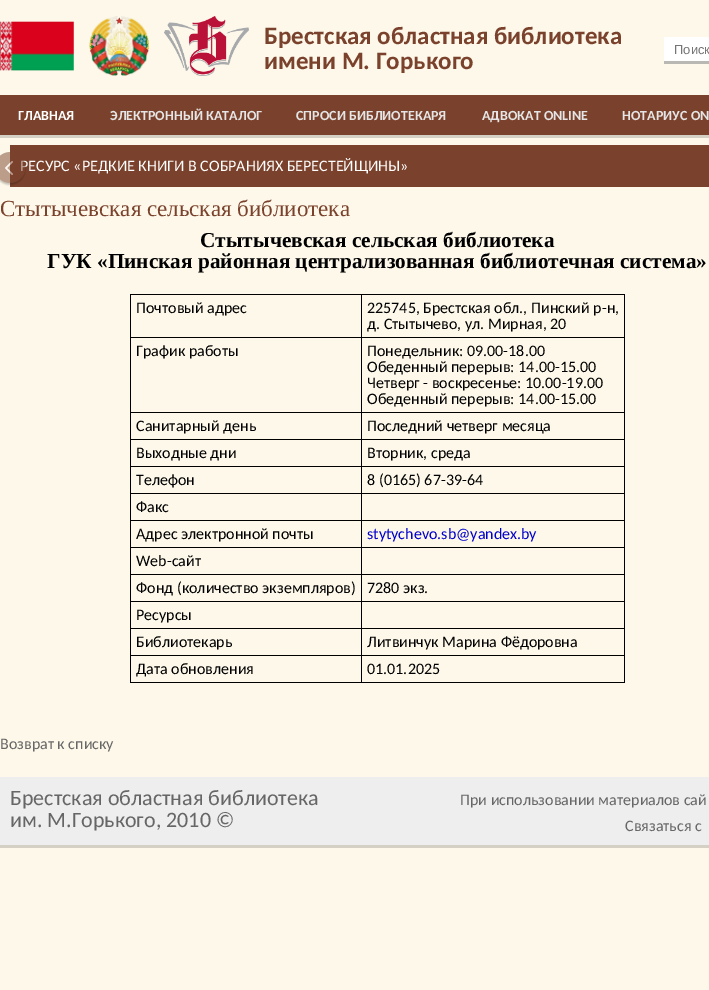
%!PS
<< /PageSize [709 990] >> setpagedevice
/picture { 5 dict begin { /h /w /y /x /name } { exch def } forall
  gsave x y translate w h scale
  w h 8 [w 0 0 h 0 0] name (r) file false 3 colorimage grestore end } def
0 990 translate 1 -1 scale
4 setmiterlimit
0.992 0.973 0.914 setrgbcolor
0 0 709 990 rectfill
(img1.rgb) 0 21 74 50 picture
(img2.rgb) 89 16 60 60 picture
(img3.rgb) 164 16 85 60 picture
/Carlito-Bold [25 0 0 -25 0 0] selectfont
0.478 0.259 0.173 setrgbcolor
264 44 moveto (Брестская областная библиотека) show
264 69 moveto (имени М. Горького) show
0.725 0.722 0.698 setrgbcolor
664 61 45 3 rectfill
1 setgray
664 37 45 24 rectfill
/LiberationSans-Regular [13 0 0 -13 0 0] selectfont
0.459 setgray
674 54 moveto (Поиск) show
0.831 0.816 0.769 setrgbcolor
0 135 709 3 rectfill
0.478 0.259 0.173 setrgbcolor
0 95 709 40 rectfill
/Carlito-Bold [14 0 0 -14 0 0] selectfont
1 setgray
18 120 moveto (ГЛАВНАЯ) show
0.898 setgray
110 120 moveto (ЭЛЕКТРОННЫЙ КАТАЛОГ) show
296 120 moveto (СПРОСИ БИБЛИОТЕКАРЯ) show
482 120 moveto (АДВОКАТ ONLINE) show
622 120 moveto (НОТАРИУС ON) show
0.478 0.259 0.173 setrgbcolor
10 145 699 42 rectfill
/Carlito-Regular [16 0 0 -16 0 0] selectfont
1 setgray
20 171 moveto (РЕСУРС «РЕДКИЕ КНИГИ В СОБРАНИЯХ БЕРЕСТЕЙЩИНЫ») show
(img4.rgb) 0 152 26 34 picture
/LiberationSerif-Regular [23 0 0 -23 0 0] selectfont
0.478 0.259 0.173 setrgbcolor
0 216 moveto (Стытычевская сельская библиотека) show
/LiberationSerif-Bold [21.3 0 0 -21.3 0 0] selectfont
0 setgray
200 247 moveto (Стытычевская сельская библиотека) show
47 268 moveto (ГУК «Пинская районная централизованная библиотечная система») show
361 294 264 1 rectfill
361 337 264 1 rectfill
361 412 264 1 rectfill
361 439 264 1 rectfill
361 466 264 1 rectfill
361 493 264 1 rectfill
361 520 264 1 rectfill
361 547 264 1 rectfill
361 574 264 1 rectfill
361 601 264 1 rectfill
361 628 264 1 rectfill
361 655 264 1 rectfill
624 655 1 28 rectfill
361 682 264 1 rectfill
361 655 1 28 rectfill
130 655 232 1 rectfill
361 628 1 28 rectfill
130 628 232 1 rectfill
361 601 1 28 rectfill
130 601 232 1 rectfill
361 574 1 28 rectfill
130 574 232 1 rectfill
361 547 1 28 rectfill
130 547 232 1 rectfill
361 520 1 28 rectfill
130 520 232 1 rectfill
361 493 1 28 rectfill
130 493 232 1 rectfill
361 466 1 28 rectfill
130 466 232 1 rectfill
361 439 1 28 rectfill
130 439 232 1 rectfill
361 412 1 28 rectfill
130 412 232 1 rectfill
361 337 1 76 rectfill
130 337 232 1 rectfill
361 294 1 44 rectfill
130 294 232 1 rectfill
130 682 232 1 rectfill
130 655 1 28 rectfill
130 628 1 28 rectfill
130 601 1 28 rectfill
130 574 1 28 rectfill
130 547 1 28 rectfill
130 520 1 28 rectfill
130 493 1 28 rectfill
130 466 1 28 rectfill
130 439 1 28 rectfill
130 412 1 28 rectfill
130 337 1 76 rectfill
130 294 1 44 rectfill
/Carlito-Regular [16 0 0 -16 0 0] selectfont
136 313 moveto (Почтовый адрес) show
624 628 1 28 rectfill
624 601 1 28 rectfill
624 574 1 28 rectfill
624 547 1 28 rectfill
624 520 1 28 rectfill
624 493 1 28 rectfill
624 466 1 28 rectfill
624 439 1 28 rectfill
624 412 1 28 rectfill
624 337 1 76 rectfill
624 294 1 44 rectfill
367 313 moveto (225745, Брестская обл., Пинский р-н,) show
367 329 moveto (д. Стытычево, ул. Мирная, 20) show
136 356 moveto (График работы) show
367 356 moveto (Понедельник: 09.00-18.00) show
367 372 moveto (Обеденный перерыв: 14.00-15.00) show
367 388 moveto (Четверг - воскресенье: 10.00-19.00) show
367 404 moveto (Обеденный перерыв: 14.00-15.00) show
136 431 moveto (Санитарный день) show
367 431 moveto (Последний четверг месяца) show
136 458 moveto (Выходные дни) show
367 458 moveto (Вторник, среда) show
136 485 moveto (Телефон) show
367 485 moveto (8 \(0165\) 67-39-64) show
136 512 moveto (Факс) show
136 539 moveto (Адрес электронной почты) show
0 0 0.804 setrgbcolor
367 539 moveto (stytychevo.sb@yandex.by) show
0 setgray
136 566 moveto (Web-сайт) show
136 593 moveto (Фонд \(количество экземпляров\)) show
367 593 moveto (7280 экз.) show
136 620 moveto (Ресурсы) show
136 647 moveto (Библиотекарь) show
367 647 moveto (Литвинчук Марина Фёдоровна) show
136 674 moveto (Дата обновления) show
367 674 moveto (01.01.2025) show
0.4 setgray
0 749 moveto (Возврат к списку) show
0.831 0.816 0.769 setrgbcolor
0 845 709 3 rectfill
0.933 setgray
0 777 709 68 rectfill
/Carlito-Regular [22 0 0 -22 0 0] selectfont
0.4 setgray
10 805 moveto (Брестская областная библиотека) show
10 827 moveto (им. М.Горького, 2010 ©) show
/Carlito-Regular [16 0 0 -16 0 0] selectfont
460 805 moveto (При использовании материалов сай) show
625 831 moveto (Связаться с) show
showpage
